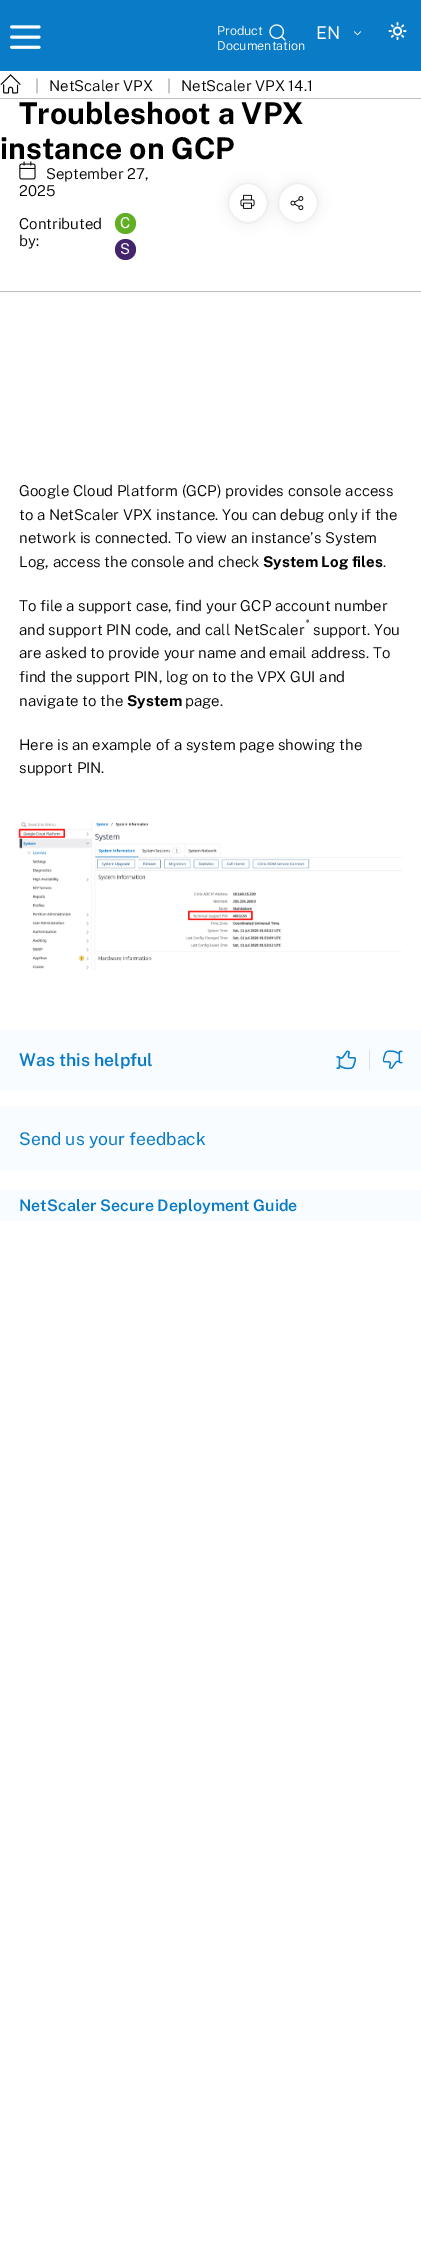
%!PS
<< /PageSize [421 2266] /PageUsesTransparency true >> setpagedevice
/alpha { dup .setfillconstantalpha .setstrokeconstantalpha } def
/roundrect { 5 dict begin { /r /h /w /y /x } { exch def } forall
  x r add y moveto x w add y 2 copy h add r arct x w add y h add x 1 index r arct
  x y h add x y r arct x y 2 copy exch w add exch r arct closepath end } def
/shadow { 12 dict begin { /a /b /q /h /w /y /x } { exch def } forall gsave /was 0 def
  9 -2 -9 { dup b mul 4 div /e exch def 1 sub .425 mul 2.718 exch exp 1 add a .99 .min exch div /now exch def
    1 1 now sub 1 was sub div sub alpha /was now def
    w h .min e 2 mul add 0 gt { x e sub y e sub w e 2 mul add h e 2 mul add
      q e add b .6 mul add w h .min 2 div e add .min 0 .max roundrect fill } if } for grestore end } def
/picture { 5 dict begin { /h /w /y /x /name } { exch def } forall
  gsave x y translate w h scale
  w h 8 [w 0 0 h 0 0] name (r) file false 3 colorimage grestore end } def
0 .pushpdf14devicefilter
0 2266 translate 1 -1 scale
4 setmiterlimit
1 setgray
0 0 421 2266 rectfill
0.039 0.482 0.776 setrgbcolor
0 0 421 71 rectfill
(img1.rgb) 10 25 31 24 picture
/PublicSans-Light [12.5 0 0 -12.5 0 0] selectfont
1 setgray
217 35 moveto (Product) show
(img2.rgb) 269 24 17 17 picture
217 50 moveto (Documentation) show
/PublicSans-Regular [17.5 0 0 -17.5 0 0] selectfont
316 39 moveto (EN) show
(img3.rgb) 353 31 9 5 picture
(img4.rgb) 388 22 19 19 picture
0.745 setgray
0 98 421 1 rectfill
(img5.rgb) 0 74 21 20 picture
/PublicSans-Light [15 0 0 -15 0 0] selectfont
0.6 setgray
35 91 moveto (|) show
0 setgray
49 91 moveto (NetScaler VPX) show
0.6 setgray
167 91 moveto (|) show
0 setgray
181 91 moveto (NetScaler VPX 14.1) show
/PublicSans-Bold [30 0 0 -30 0 0] selectfont
19 124 moveto (Troubleshoot a VPX) show
0 159 moveto (instance on GCP) show
0.745 setgray
0 291 421 1 rectfill
(img6.rgb) 19 161 17 19 picture
/PublicSans-Light [15 0 0 -15 0 0] selectfont
0 setgray
46 179 moveto (September 27,) show
19 196 moveto (2025) show
19 229 moveto (Contributed) show
0.38 0.69 0.141 setrgbcolor
newpath 125.5 223.5 10.5 0 360 arc closepath fill
/PublicSans-Regular [15 0 0 -15 0 0] selectfont
1 setgray
120 228 moveto (C) show
0.271 0.141 0.431 setrgbcolor
newpath 125.5 249.5 10.5 0 360 arc closepath fill
1 setgray
120 254 moveto (S) show
/PublicSans-Light [15 0 0 -15 0 0] selectfont
0 setgray
19 246 moveto (by:) show
228 183 40 40 20 6 0.07 shadow
1 setgray
newpath 248 203 20 0 360 arc closepath fill
0.07 alpha
0 setgray
newpath 248 203 19.5 0 360 arc closepath stroke
1 alpha
(img7.rgb) 240 194 15 15 picture
278 183 40 40 20 6 0.07 shadow
1 setgray
newpath 298 203 20 0 360 arc closepath fill
0.07 alpha
0 setgray
newpath 298 203 19.5 0 360 arc closepath stroke
1 alpha
(img8.rgb) 290 196 14 15 picture
0.973 0.988 1 setrgbcolor
0 293 421 1 rectfill
0 setgray
19 496 moveto (Google Cloud Platform \(GCP\) provides console access) show
19 520 moveto (to a NetScaler VPX instance. You can debug only if the) show
19 543 moveto (network is connected. To view an instance’s System) show
19 567 moveto (Log, access the console and check) show
/PublicSans-Bold [15 0 0 -15 0 0] selectfont
263 567 moveto (System Log files) show
/PublicSans-Light [15 0 0 -15 0 0] selectfont
383 567 moveto (.) show
19 611 moveto (To file a support case, find your GCP account number) show
/PublicSans-Bold [6 0 0 -6 0 0] selectfont
306 624 moveto (®) show
/PublicSans-Light [15 0 0 -15 0 0] selectfont
19 635 moveto (and support PIN code, and call NetScaler) show
313 635 moveto (support. You) show
19 658 moveto (are asked to provide your name and email address. To) show
19 682 moveto (find the support PIN, log on to the VPX GUI and) show
19 706 moveto (navigate to the) show
/PublicSans-Bold [15 0 0 -15 0 0] selectfont
127 706 moveto (System) show
/PublicSans-Light [15 0 0 -15 0 0] selectfont
185 706 moveto (page.) show
19 750 moveto (Here is an example of a system page showing the) show
19 773 moveto (support PIN.) show
(img9.rgb) 18 820 384 151 picture
0.973 0.988 1 setrgbcolor
0 1030 421 61 rectfill
/PublicSans-SemiBold [17.5 0 0 -17.5 0 0] selectfont
0.039 0.482 0.776 setrgbcolor
19 1066 moveto (Was this helpful) show
(img10.rgb) 336 1050 20 20 picture
gsave
369 1050 1 20 rectclip
0.776 0.792 0.8 setrgbcolor
newpath 370 1050 moveto 370 1070 lineto stroke
grestore
(img11.rgb) 383 1050 20 19 picture
0.973 0.988 1 setrgbcolor
0 1106 421 65 rectfill
/PublicSans-Regular [17.5 0 0 -17.5 0 0] selectfont
0.039 0.482 0.776 setrgbcolor
19 1145 moveto (Send us your feedback) show
0.973 0.988 1 setrgbcolor
0 1190 421 31 rectfill
/PublicSans-SemiBold [16 0 0 -16 0 0] selectfont
0.039 0.482 0.776 setrgbcolor
19 1211 moveto (NetScaler Secure Deployment Guide) show
.poppdf14devicefilter showpage
